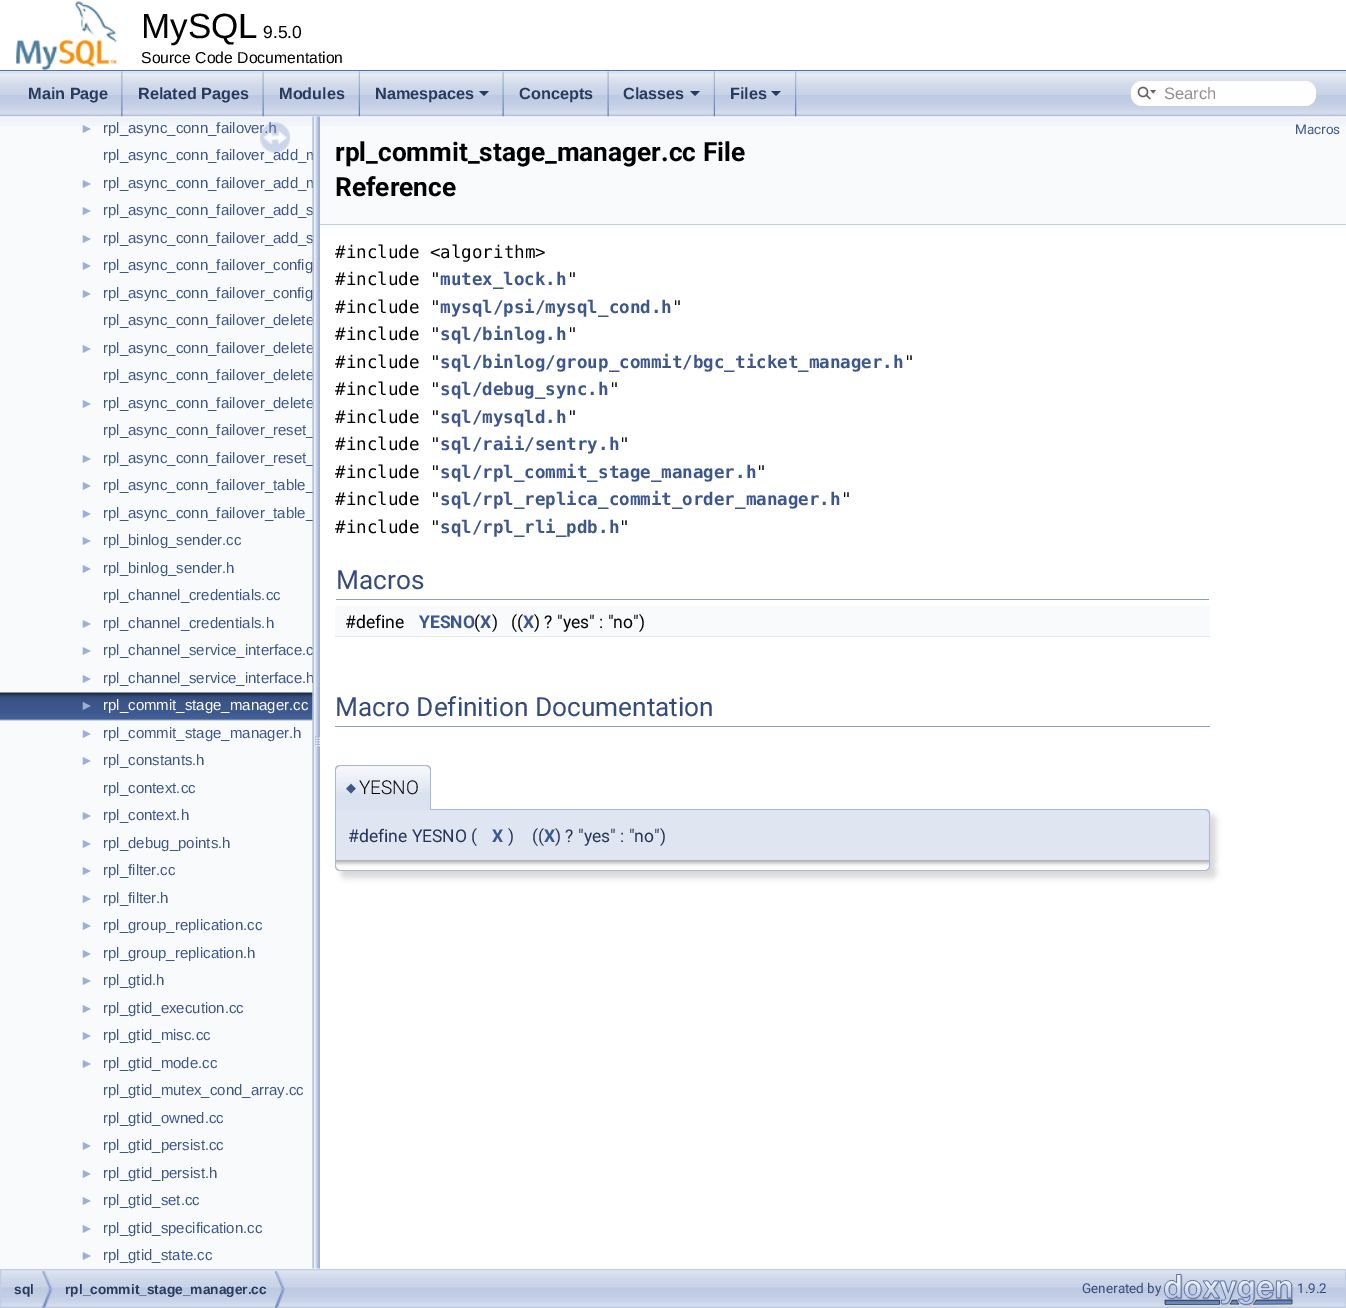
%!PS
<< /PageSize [1346 1308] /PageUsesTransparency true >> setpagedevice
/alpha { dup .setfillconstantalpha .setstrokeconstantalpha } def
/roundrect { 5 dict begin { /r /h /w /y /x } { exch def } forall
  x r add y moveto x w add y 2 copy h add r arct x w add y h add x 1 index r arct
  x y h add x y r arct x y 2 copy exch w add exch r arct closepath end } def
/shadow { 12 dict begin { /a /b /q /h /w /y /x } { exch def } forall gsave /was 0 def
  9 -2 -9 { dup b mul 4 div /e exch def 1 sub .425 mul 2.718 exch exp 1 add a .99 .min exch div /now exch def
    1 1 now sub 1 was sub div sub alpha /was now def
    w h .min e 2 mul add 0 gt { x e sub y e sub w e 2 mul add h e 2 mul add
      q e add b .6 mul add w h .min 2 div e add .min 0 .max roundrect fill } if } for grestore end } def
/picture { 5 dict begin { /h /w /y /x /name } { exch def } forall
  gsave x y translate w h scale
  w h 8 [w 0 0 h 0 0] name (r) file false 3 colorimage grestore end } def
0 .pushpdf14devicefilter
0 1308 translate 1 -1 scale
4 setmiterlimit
1 setgray
0 0 1346 1308 rectfill
0.325 0.451 0.706 setrgbcolor
0 70 1346 1 rectfill
(img1.rgb) 16 1 101 69 picture
/LiberationSans-Regular [35 0 0 -35 0 0] selectfont
0 setgray
141 38 moveto (MySQL) show
/LiberationSans-Regular [17.5 0 0 -17.5 0 0] selectfont
263 38 moveto (9.5.0) show
/LiberationSans-Regular [15.75 0 0 -15.75 0 0] selectfont
141 63 moveto (Source Code Documentation) show
(img16.rgb) 1 1268 1345 40 picture
0.976 0.98 0.988 setrgbcolor
0 116 313 1153 rectfill
(img9.rgb) 0 118 313 8 picture
/LiberationSans-Regular [15 0 0 -15 0 0] selectfont
0.239 0.341 0.549 setrgbcolor
103 160 moveto (rpl_async_conn_failover_add_m) show
103 188 moveto (rpl_async_conn_failover_add_m) show
103 215 moveto (rpl_async_conn_failover_add_s) show
103 243 moveto (rpl_async_conn_failover_add_s) show
103 325 moveto (rpl_async_conn_failover_delete) show
103 353 moveto (rpl_async_conn_failover_delete) show
103 380 moveto (rpl_async_conn_failover_delete) show
103 408 moveto (rpl_async_conn_failover_delete) show
103 435 moveto (rpl_async_conn_failover_reset_) show
103 463 moveto (rpl_async_conn_failover_reset_) show
103 490 moveto (rpl_async_conn_failover_table_) show
103 518 moveto (rpl_async_conn_failover_table_) show
103 655 moveto (rpl_channel_service_interface.c) show
103 683 moveto (rpl_channel_service_interface.h) show
(img10.rgb) 0 692 313 29 picture
(img12.rgb) 312 116 8 1153 picture
0.976 0.98 0.988 setrgbcolor
320 116 1026 108 rectfill
(img2.rgb) 0 71 1346 46 picture
(img3.rgb) 121 71 2 46 picture
/LiberationSans-Bold [16.25 0 0 -16.25 0 0] selectfont
0.157 0.227 0.365 setrgbcolor
28 99 moveto (Main Page) show
(img4.rgb) 262 71 2 46 picture
138 99 moveto (Related Pages) show
(img5.rgb) 358 71 2 46 picture
279 99 moveto (Modules) show
(img6.rgb) 502 71 2 46 picture
375 99 moveto (Namespaces) show
newpath 479 91 moveto 489 91 lineto 484 96 lineto closepath fill
(img4.rgb) 607 71 2 46 picture
519 99 moveto (Concepts) show
(img5.rgb) 713 71 2 46 picture
623 99 moveto (Classes) show
newpath 690 91 moveto 700 91 lineto 695 96 lineto closepath fill
(img7.rgb) 795 71 2 46 picture
730 99 moveto (Files) show
newpath 771 91 moveto 781 91 lineto 776 96 lineto closepath fill
1 setgray
1131 81 185 25 11 roundrect fill
(img8.rgb) 1137 86 20 14 picture
/LiberationSans-Regular [16.5 0 0 -16.5 0 0] selectfont
0.565 setgray
1164 99 moveto (Search) show
/LiberationSans-Regular [14 0 0 -14 0 0] selectfont
0.612 0.686 0.831 setrgbcolor
80 133 moveto (►) show
/LiberationSans-Regular [15 0 0 -15 0 0] selectfont
0.239 0.341 0.549 setrgbcolor
103 133 moveto (rpl_async_conn_failover.h) show
/LiberationSans-Regular [14 0 0 -14 0 0] selectfont
0.612 0.686 0.831 setrgbcolor
80 188 moveto (►) show
80 215 moveto (►) show
80 243 moveto (►) show
80 270 moveto (►) show
/LiberationSans-Regular [15 0 0 -15 0 0] selectfont
0.239 0.341 0.549 setrgbcolor
103 270 moveto (rpl_async_conn_failover_config) show
/LiberationSans-Regular [14 0 0 -14 0 0] selectfont
0.612 0.686 0.831 setrgbcolor
80 298 moveto (►) show
/LiberationSans-Regular [15 0 0 -15 0 0] selectfont
0.239 0.341 0.549 setrgbcolor
103 298 moveto (rpl_async_conn_failover_config) show
/LiberationSans-Regular [14 0 0 -14 0 0] selectfont
0.612 0.686 0.831 setrgbcolor
80 353 moveto (►) show
80 408 moveto (►) show
80 463 moveto (►) show
80 490 moveto (►) show
80 518 moveto (►) show
80 545 moveto (►) show
/LiberationSans-Regular [15 0 0 -15 0 0] selectfont
0.239 0.341 0.549 setrgbcolor
103 545 moveto (rpl_binlog_sender.cc) show
/LiberationSans-Regular [14 0 0 -14 0 0] selectfont
0.612 0.686 0.831 setrgbcolor
80 573 moveto (►) show
/LiberationSans-Regular [15 0 0 -15 0 0] selectfont
0.239 0.341 0.549 setrgbcolor
103 573 moveto (rpl_binlog_sender.h) show
103 600 moveto (rpl_channel_credentials.cc) show
/LiberationSans-Regular [14 0 0 -14 0 0] selectfont
0.612 0.686 0.831 setrgbcolor
80 628 moveto (►) show
/LiberationSans-Regular [15 0 0 -15 0 0] selectfont
0.239 0.341 0.549 setrgbcolor
103 628 moveto (rpl_channel_credentials.h) show
/LiberationSans-Regular [14 0 0 -14 0 0] selectfont
0.612 0.686 0.831 setrgbcolor
80 655 moveto (►) show
80 683 moveto (►) show
80 710 moveto (►) show
/LiberationSans-Regular [15 0 0 -15 0 0] selectfont
1 setgray
103 710 moveto (rpl_commit_stage_manager.cc) show
/LiberationSans-Regular [14 0 0 -14 0 0] selectfont
0.612 0.686 0.831 setrgbcolor
80 738 moveto (►) show
/LiberationSans-Regular [15 0 0 -15 0 0] selectfont
0.239 0.341 0.549 setrgbcolor
103 738 moveto (rpl_commit_stage_manager.h) show
/LiberationSans-Regular [14 0 0 -14 0 0] selectfont
0.612 0.686 0.831 setrgbcolor
80 765 moveto (►) show
/LiberationSans-Regular [15 0 0 -15 0 0] selectfont
0.239 0.341 0.549 setrgbcolor
103 765 moveto (rpl_constants.h) show
103 793 moveto (rpl_context.cc) show
/LiberationSans-Regular [14 0 0 -14 0 0] selectfont
0.612 0.686 0.831 setrgbcolor
80 820 moveto (►) show
/LiberationSans-Regular [15 0 0 -15 0 0] selectfont
0.239 0.341 0.549 setrgbcolor
103 820 moveto (rpl_context.h) show
/LiberationSans-Regular [14 0 0 -14 0 0] selectfont
0.612 0.686 0.831 setrgbcolor
80 848 moveto (►) show
/LiberationSans-Regular [15 0 0 -15 0 0] selectfont
0.239 0.341 0.549 setrgbcolor
103 848 moveto (rpl_debug_points.h) show
/LiberationSans-Regular [14 0 0 -14 0 0] selectfont
0.612 0.686 0.831 setrgbcolor
80 875 moveto (►) show
/LiberationSans-Regular [15 0 0 -15 0 0] selectfont
0.239 0.341 0.549 setrgbcolor
103 875 moveto (rpl_filter.cc) show
/LiberationSans-Regular [14 0 0 -14 0 0] selectfont
0.612 0.686 0.831 setrgbcolor
80 903 moveto (►) show
/LiberationSans-Regular [15 0 0 -15 0 0] selectfont
0.239 0.341 0.549 setrgbcolor
103 903 moveto (rpl_filter.h) show
/LiberationSans-Regular [14 0 0 -14 0 0] selectfont
0.612 0.686 0.831 setrgbcolor
80 930 moveto (►) show
/LiberationSans-Regular [15 0 0 -15 0 0] selectfont
0.239 0.341 0.549 setrgbcolor
103 930 moveto (rpl_group_replication.cc) show
/LiberationSans-Regular [14 0 0 -14 0 0] selectfont
0.612 0.686 0.831 setrgbcolor
80 958 moveto (►) show
/LiberationSans-Regular [15 0 0 -15 0 0] selectfont
0.239 0.341 0.549 setrgbcolor
103 958 moveto (rpl_group_replication.h) show
/LiberationSans-Regular [14 0 0 -14 0 0] selectfont
0.612 0.686 0.831 setrgbcolor
80 985 moveto (►) show
/LiberationSans-Regular [15 0 0 -15 0 0] selectfont
0.239 0.341 0.549 setrgbcolor
103 985 moveto (rpl_gtid.h) show
/LiberationSans-Regular [14 0 0 -14 0 0] selectfont
0.612 0.686 0.831 setrgbcolor
80 1013 moveto (►) show
/LiberationSans-Regular [15 0 0 -15 0 0] selectfont
0.239 0.341 0.549 setrgbcolor
103 1013 moveto (rpl_gtid_execution.cc) show
/LiberationSans-Regular [14 0 0 -14 0 0] selectfont
0.612 0.686 0.831 setrgbcolor
80 1040 moveto (►) show
/LiberationSans-Regular [15 0 0 -15 0 0] selectfont
0.239 0.341 0.549 setrgbcolor
103 1040 moveto (rpl_gtid_misc.cc) show
/LiberationSans-Regular [14 0 0 -14 0 0] selectfont
0.612 0.686 0.831 setrgbcolor
80 1068 moveto (►) show
/LiberationSans-Regular [15 0 0 -15 0 0] selectfont
0.239 0.341 0.549 setrgbcolor
103 1068 moveto (rpl_gtid_mode.cc) show
103 1095 moveto (rpl_gtid_mutex_cond_array.cc) show
103 1123 moveto (rpl_gtid_owned.cc) show
/LiberationSans-Regular [14 0 0 -14 0 0] selectfont
0.612 0.686 0.831 setrgbcolor
80 1150 moveto (►) show
/LiberationSans-Regular [15 0 0 -15 0 0] selectfont
0.239 0.341 0.549 setrgbcolor
103 1150 moveto (rpl_gtid_persist.cc) show
/LiberationSans-Regular [14 0 0 -14 0 0] selectfont
0.612 0.686 0.831 setrgbcolor
80 1178 moveto (►) show
/LiberationSans-Regular [15 0 0 -15 0 0] selectfont
0.239 0.341 0.549 setrgbcolor
103 1178 moveto (rpl_gtid_persist.h) show
/LiberationSans-Regular [14 0 0 -14 0 0] selectfont
0.612 0.686 0.831 setrgbcolor
80 1205 moveto (►) show
/LiberationSans-Regular [15 0 0 -15 0 0] selectfont
0.239 0.341 0.549 setrgbcolor
103 1205 moveto (rpl_gtid_set.cc) show
/LiberationSans-Regular [14 0 0 -14 0 0] selectfont
0.612 0.686 0.831 setrgbcolor
80 1233 moveto (►) show
/LiberationSans-Regular [15 0 0 -15 0 0] selectfont
0.239 0.341 0.549 setrgbcolor
103 1233 moveto (rpl_gtid_specification.cc) show
/LiberationSans-Regular [14 0 0 -14 0 0] selectfont
0.612 0.686 0.831 setrgbcolor
80 1260 moveto (►) show
/LiberationSans-Regular [15 0 0 -15 0 0] selectfont
0.239 0.341 0.549 setrgbcolor
103 1260 moveto (rpl_gtid_state.cc) show
(img11.rgb) 260 122 30 31 picture
(img13.rgb) 320 118 1026 8 picture
0.769 0.812 0.898 setrgbcolor
320 224 1026 1 rectfill
/Roboto-Regular [13.5 0 0 -13.5 0 0] selectfont
0.239 0.341 0.549 setrgbcolor
1295 134 moveto (Macros) show
/Roboto-Bold [26.25 0 0 -26.25 0 0] selectfont
0 setgray
335 161 moveto (rpl_commit_stage_manager.cc File) show
335 196 moveto (Reference) show
/DejaVuSansMono-Regular [17.5 0 0 -17.5 0 0] selectfont
335 258 moveto (#include <algorithm>) show
335 285 moveto (#include ") show
/DejaVuSansMono-Bold [17.5 0 0 -17.5 0 0] selectfont
0.239 0.341 0.549 setrgbcolor
440 285 moveto (mutex_lock.h) show
/DejaVuSansMono-Regular [17.5 0 0 -17.5 0 0] selectfont
0 setgray
567 285 moveto (") show
335 313 moveto (#include ") show
/DejaVuSansMono-Bold [17.5 0 0 -17.5 0 0] selectfont
0.239 0.341 0.549 setrgbcolor
440 313 moveto (mysql/psi/mysql_cond.h) show
/DejaVuSansMono-Regular [17.5 0 0 -17.5 0 0] selectfont
0 setgray
672 313 moveto (") show
335 340 moveto (#include ") show
/DejaVuSansMono-Bold [17.5 0 0 -17.5 0 0] selectfont
0.239 0.341 0.549 setrgbcolor
440 340 moveto (sql/binlog.h) show
/DejaVuSansMono-Regular [17.5 0 0 -17.5 0 0] selectfont
0 setgray
567 340 moveto (") show
335 368 moveto (#include ") show
/DejaVuSansMono-Bold [17.5 0 0 -17.5 0 0] selectfont
0.239 0.341 0.549 setrgbcolor
440 368 moveto (sql/binlog/group_commit/bgc_ticket_manager.h) show
/DejaVuSansMono-Regular [17.5 0 0 -17.5 0 0] selectfont
0 setgray
904 368 moveto (") show
335 395 moveto (#include ") show
/DejaVuSansMono-Bold [17.5 0 0 -17.5 0 0] selectfont
0.239 0.341 0.549 setrgbcolor
440 395 moveto (sql/debug_sync.h) show
/DejaVuSansMono-Regular [17.5 0 0 -17.5 0 0] selectfont
0 setgray
609 395 moveto (") show
335 423 moveto (#include ") show
/DejaVuSansMono-Bold [17.5 0 0 -17.5 0 0] selectfont
0.239 0.341 0.549 setrgbcolor
440 423 moveto (sql/mysqld.h) show
/DejaVuSansMono-Regular [17.5 0 0 -17.5 0 0] selectfont
0 setgray
567 423 moveto (") show
335 450 moveto (#include ") show
/DejaVuSansMono-Bold [17.5 0 0 -17.5 0 0] selectfont
0.239 0.341 0.549 setrgbcolor
440 450 moveto (sql/raii/sentry.h) show
/DejaVuSansMono-Regular [17.5 0 0 -17.5 0 0] selectfont
0 setgray
619 450 moveto (") show
335 478 moveto (#include ") show
/DejaVuSansMono-Bold [17.5 0 0 -17.5 0 0] selectfont
0.239 0.341 0.549 setrgbcolor
440 478 moveto (sql/rpl_commit_stage_manager.h) show
/DejaVuSansMono-Regular [17.5 0 0 -17.5 0 0] selectfont
0 setgray
756 478 moveto (") show
335 505 moveto (#include ") show
/DejaVuSansMono-Bold [17.5 0 0 -17.5 0 0] selectfont
0.239 0.341 0.549 setrgbcolor
440 505 moveto (sql/rpl_replica_commit_order_manager.h) show
/DejaVuSansMono-Regular [17.5 0 0 -17.5 0 0] selectfont
0 setgray
841 505 moveto (") show
335 533 moveto (#include ") show
/DejaVuSansMono-Bold [17.5 0 0 -17.5 0 0] selectfont
0.239 0.341 0.549 setrgbcolor
440 533 moveto (sql/rpl_rli_pdb.h) show
/DejaVuSansMono-Regular [17.5 0 0 -17.5 0 0] selectfont
0 setgray
619 533 moveto (") show
0.529 0.62 0.796 setrgbcolor
336 599 873 1 rectfill
/Roboto-Regular [26.25 0 0 -26.25 0 0] selectfont
0.208 0.298 0.482 setrgbcolor
336 589 moveto (Macros) show
0.976 0.98 0.988 setrgbcolor
335 606 875 29 rectfill
/Roboto-Regular [17.5 0 0 -17.5 0 0] selectfont
0 setgray
345 628 moveto (#define) show
/Roboto-Bold [17.5 0 0 -17.5 0 0] selectfont
0.239 0.341 0.549 setrgbcolor
419 628 moveto (YESNO) show
/Roboto-Regular [17.5 0 0 -17.5 0 0] selectfont
0 setgray
474 628 moveto (\() show
/Roboto-Bold [17.5 0 0 -17.5 0 0] selectfont
0.239 0.341 0.549 setrgbcolor
480 628 moveto (X) show
/Roboto-Regular [17.5 0 0 -17.5 0 0] selectfont
0 setgray
492 628 moveto (\)   \(\() show
/Roboto-Bold [17.5 0 0 -17.5 0 0] selectfont
0.239 0.341 0.549 setrgbcolor
523 628 moveto (X) show
/Roboto-Regular [17.5 0 0 -17.5 0 0] selectfont
0 setgray
534 628 moveto (\) ? "yes" : "no"\)) show
0.871 0.894 0.941 setrgbcolor
335 636 875 1 rectfill
0.529 0.62 0.796 setrgbcolor
335 726 875 1 rectfill
/Roboto-Regular [26.25 0 0 -26.25 0 0] selectfont
0.208 0.298 0.482 setrgbcolor
335 716 moveto (Macro Definition Documentation) show
0 setgray
341 815 875 51 5 3 0.15 shadow
0.875 0.898 0.945 setrgbcolor
newpath 335 809 moveto 1205 809 lineto 1208 809 1210 811 1210 814 curveto 1210 860 lineto 335 860 lineto closepath fill
0.659 0.722 0.851 setrgbcolor
newpath 335 809 moveto 1205 809 lineto 1208 809 1210 811 1210 814 curveto 1210 860 lineto 335 860 lineto closepath 336 810 moveto 1205 810 lineto 1207 810 1209 812 1209 814 curveto 1209 860 lineto 336 860 lineto closepath eofill
(img14.rgb) 335 766 96 44 picture
newpath 340 765 moveto 426 765 lineto 429 765 431 767 431 770 curveto 431 810 lineto 335 810 lineto 335 770 lineto 335 767 337 765 340 765 curveto closepath 340 766 moveto 426 766 lineto 428 766 430 768 430 770 curveto 430 810 lineto 336 810 lineto 336 770 lineto 336 768 338 766 340 766 curveto closepath eofill
/DejaVuSans-Regular [13 0 0 -13 0 0] selectfont
0.239 0.341 0.549 setrgbcolor
346 792 moveto (◆) show
/Roboto-Light [19 0 0 -19 0 0] selectfont
0 setgray
359 794 moveto (YESNO) show
/Roboto-Regular [17.5 0 0 -17.5 0 0] selectfont
0.145 0.208 0.333 setrgbcolor
348 842 moveto (#define YESNO) show
471 842 moveto (\() show
/Roboto-Bold [17.5 0 0 -17.5 0 0] selectfont
0.239 0.341 0.549 setrgbcolor
492 842 moveto (X) show
/Roboto-Regular [17.5 0 0 -17.5 0 0] selectfont
0.145 0.208 0.333 setrgbcolor
508 842 moveto (\)) show
532 842 moveto (\(\() show
/Roboto-Bold [17.5 0 0 -17.5 0 0] selectfont
0.239 0.341 0.549 setrgbcolor
544 842 moveto (X) show
/Roboto-Regular [17.5 0 0 -17.5 0 0] selectfont
0.145 0.208 0.333 setrgbcolor
555 842 moveto (\) ? "yes" : "no"\)) show
0 setgray
341 866 875 12 5 3 0.15 shadow
1 setgray
newpath 335 860 moveto 1210 860 lineto 1210 866 lineto 1210 869 1208 871 1205 871 curveto 340 871 lineto 337 871 335 869 335 866 curveto closepath fill
(img15.rgb) 336 860 873 6 picture
0.659 0.722 0.851 setrgbcolor
newpath 335 860 moveto 1210 860 lineto 1210 866 lineto 1210 869 1208 871 1205 871 curveto 340 871 lineto 337 871 335 869 335 866 curveto closepath 336 860 moveto 1209 860 lineto 1209 866 lineto 1209 868 1207 870 1205 870 curveto 340 870 lineto 338 870 336 868 336 866 curveto closepath eofill
0.761 0.804 0.894 setrgbcolor
0.5 1269.5 1345 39 rectstroke
(img17.rgb) 42 1271 11 37 picture
/LiberationSans-Bold [13.75 0 0 -13.75 0 0] selectfont
0.157 0.227 0.365 setrgbcolor
14 1294 moveto (sql) show
(img18.rgb) 275 1271 10 37 picture
65 1294 moveto (rpl_commit_stage_manager.cc) show
/Roboto-Regular [13.5 0 0 -13.5 0 0] selectfont
0.208 0.298 0.482 setrgbcolor
1082 1293 moveto (Generated by) show
(img19.rgb) 1164 1273 130 33 picture
1297 1293 moveto (1.9.2) show
.poppdf14devicefilter showpage
